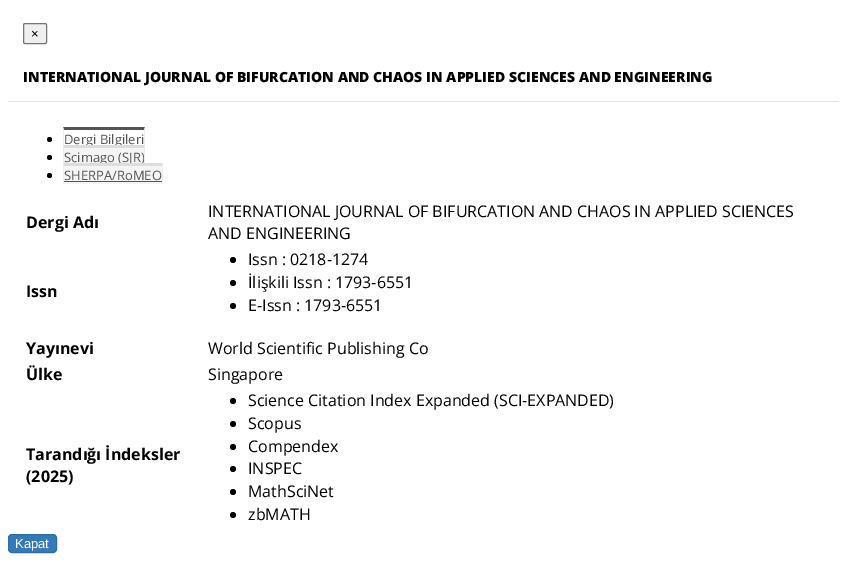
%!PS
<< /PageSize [847 574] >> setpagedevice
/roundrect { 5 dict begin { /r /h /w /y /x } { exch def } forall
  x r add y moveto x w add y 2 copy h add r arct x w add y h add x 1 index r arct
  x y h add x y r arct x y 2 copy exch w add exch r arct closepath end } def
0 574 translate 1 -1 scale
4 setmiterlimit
1 setgray
0 0 847 574 rectfill
0.898 setgray
8 101 831 1 rectfill
0.937 setgray
23.5 23.5 23 20 1.5 roundrect gsave fill grestore
0.463 setgray
stroke
/LiberationSans-Regular [13 0 0 -13 0 0] selectfont
0 setgray
31 38 moveto (×) show
/OpenSans-ExtraBold [14 0 0 -14 0 0] selectfont
23 82 moveto (INTERNATIONAL JOURNAL OF BIFURCATION AND CHAOS IN APPLIED SCIENCES AND ENGINEERING) show
newpath 49.5 139.5 2.5 0 360 arc closepath fill
/OpenSans-Regular [13 0 0 -13 0 0] selectfont
0.333 setgray
64 144 moveto (Dergi Bilgileri) show
newpath 63 127 moveto 145 127 lineto 144 130 lineto 64 130 lineto closepath fill
0.933 setgray
newpath 145 127 moveto 145 148 lineto 144 148 lineto 144 130 lineto closepath fill
newpath 63 148 moveto 63 127 lineto 64 130 lineto 64 148 lineto closepath fill
0 setgray
newpath 49.5 157.5 2.5 0 360 arc closepath fill
0.957 setgray
63 145 82 18 rectfill
0.333 setgray
64 162 moveto (Scimago \(SJR\)) show
0.867 setgray
newpath 63 145 moveto 145 145 lineto 144 148 lineto 64 148 lineto closepath fill
0.933 setgray
newpath 145 145 moveto 145 166 lineto 144 166 lineto 144 148 lineto closepath fill
newpath 63 166 moveto 63 145 lineto 64 148 lineto 64 166 lineto closepath fill
0 setgray
newpath 49.5 175.5 2.5 0 360 arc closepath fill
0.957 setgray
63 163 100 21 rectfill
0.333 setgray
64 180 moveto (SHERPA/RoMEO) show
0.867 setgray
newpath 63 163 moveto 163 163 lineto 162 166 lineto 64 166 lineto closepath fill
0.933 setgray
newpath 163 163 moveto 163 184 lineto 162 184 lineto 162 166 lineto closepath fill
newpath 63 184 moveto 63 163 lineto 64 166 lineto 64 184 lineto closepath fill
0.333 setgray
64 181 98 1 rectfill
/OpenSans-Bold [16 0 0 -16 0 0] selectfont
0 setgray
26 228 moveto (Dergi Adı) show
/OpenSans-Regular [16 0 0 -16 0 0] selectfont
208 217 moveto (INTERNATIONAL JOURNAL OF BIFURCATION AND CHAOS IN APPLIED SCIENCES) show
208 239 moveto (AND ENGINEERING) show
/OpenSans-Bold [16 0 0 -16 0 0] selectfont
26 297 moveto (Issn) show
newpath 233 260 3 0 360 arc closepath fill
/OpenSans-Regular [16 0 0 -16 0 0] selectfont
248 265 moveto (Issn : 0218-1274) show
newpath 233 283 3 0 360 arc closepath fill
248 288 moveto (İlişkili Issn : 1793-6551) show
newpath 233 306 3 0 360 arc closepath fill
248 311 moveto (E-Issn : 1793-6551) show
/OpenSans-Bold [16 0 0 -16 0 0] selectfont
26 354 moveto (Yayınevi) show
/OpenSans-Regular [16 0 0 -16 0 0] selectfont
208 354 moveto (World Scientific Publishing Co) show
/OpenSans-Bold [16 0 0 -16 0 0] selectfont
26 380 moveto (Ülke) show
/OpenSans-Regular [16 0 0 -16 0 0] selectfont
208 380 moveto (Singapore) show
/OpenSans-Bold [16 0 0 -16 0 0] selectfont
26 460 moveto (Tarandığı İndeksler) show
26 482 moveto (\(2025\)) show
newpath 233 401 3 0 360 arc closepath fill
/OpenSans-Regular [16 0 0 -16 0 0] selectfont
248 406 moveto (Science Citation Index Expanded \(SCI-EXPANDED\)) show
newpath 233 424 3 0 360 arc closepath fill
248 429 moveto (Scopus) show
newpath 233 447 3 0 360 arc closepath fill
248 452 moveto (Compendex) show
newpath 233 469 3 0 360 arc closepath fill
248 474 moveto (INSPEC) show
newpath 233 492 3 0 360 arc closepath fill
248 497 moveto (MathSciNet) show
newpath 233 515 3 0 360 arc closepath fill
248 520 moveto (zbMATH) show
0.2 0.478 0.718 setrgbcolor
8.5 534.5 48 18 3.5 roundrect gsave fill grestore
0.18 0.427 0.643 setrgbcolor
stroke
/LiberationSans-Regular [13 0 0 -13 0 0] selectfont
1 setgray
15 548 moveto (Kapat) show
showpage
